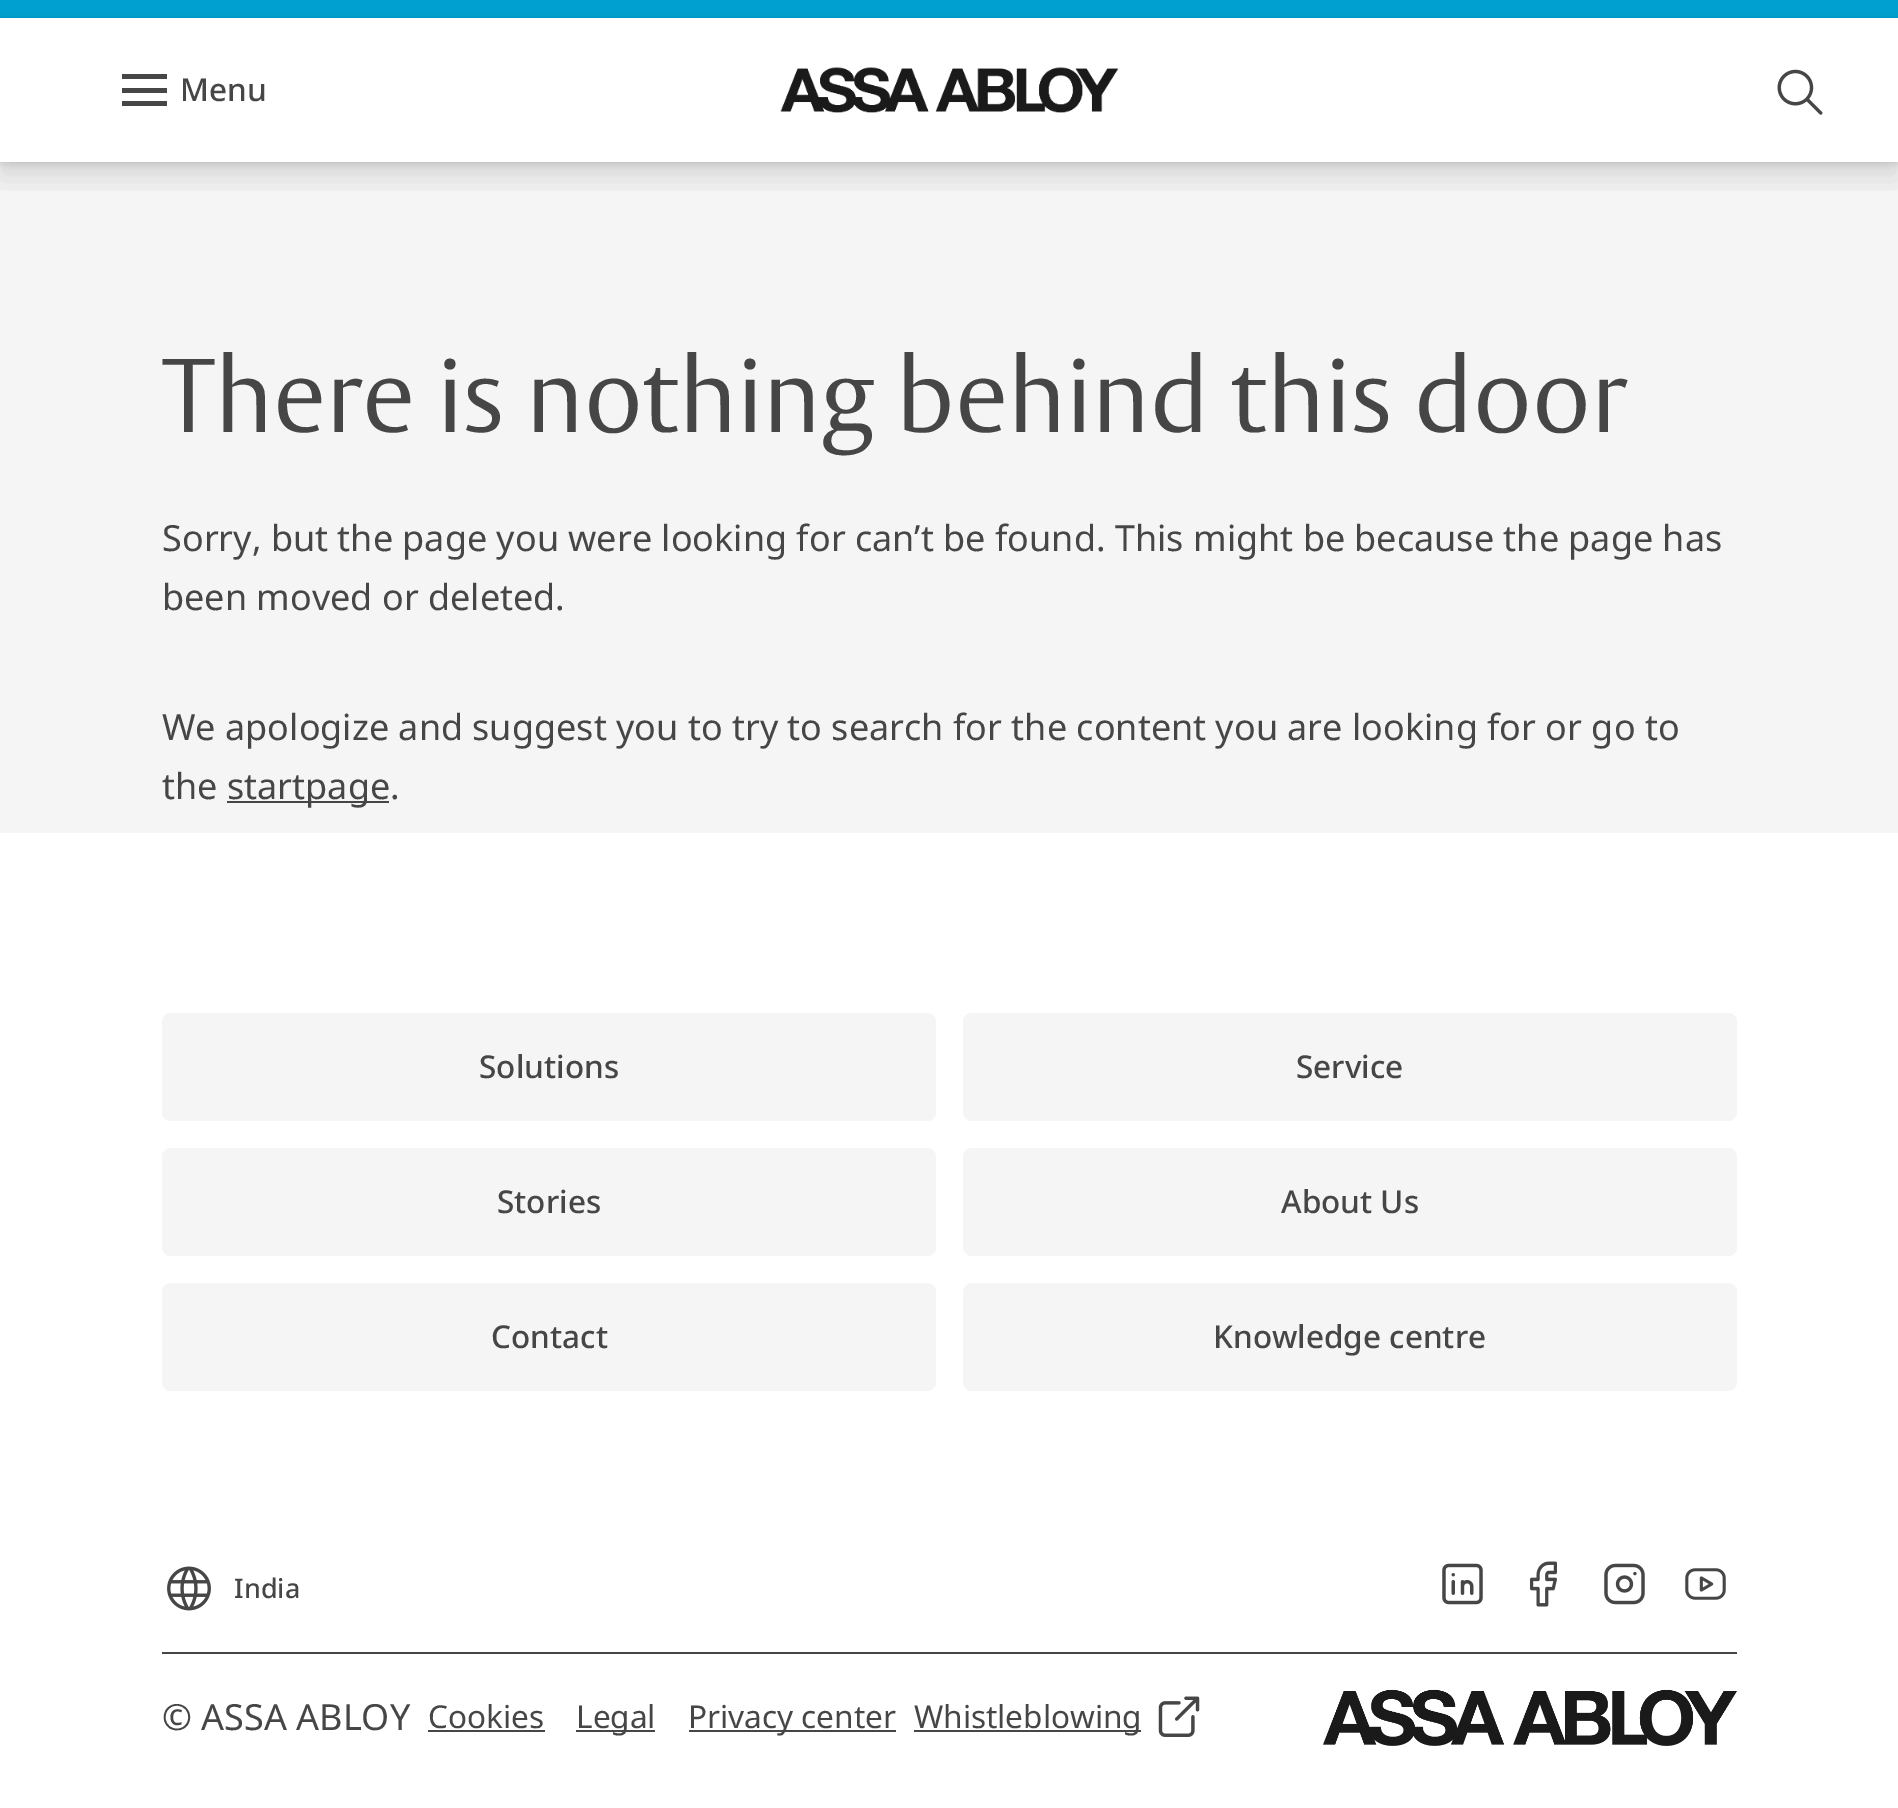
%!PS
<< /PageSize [1898 1808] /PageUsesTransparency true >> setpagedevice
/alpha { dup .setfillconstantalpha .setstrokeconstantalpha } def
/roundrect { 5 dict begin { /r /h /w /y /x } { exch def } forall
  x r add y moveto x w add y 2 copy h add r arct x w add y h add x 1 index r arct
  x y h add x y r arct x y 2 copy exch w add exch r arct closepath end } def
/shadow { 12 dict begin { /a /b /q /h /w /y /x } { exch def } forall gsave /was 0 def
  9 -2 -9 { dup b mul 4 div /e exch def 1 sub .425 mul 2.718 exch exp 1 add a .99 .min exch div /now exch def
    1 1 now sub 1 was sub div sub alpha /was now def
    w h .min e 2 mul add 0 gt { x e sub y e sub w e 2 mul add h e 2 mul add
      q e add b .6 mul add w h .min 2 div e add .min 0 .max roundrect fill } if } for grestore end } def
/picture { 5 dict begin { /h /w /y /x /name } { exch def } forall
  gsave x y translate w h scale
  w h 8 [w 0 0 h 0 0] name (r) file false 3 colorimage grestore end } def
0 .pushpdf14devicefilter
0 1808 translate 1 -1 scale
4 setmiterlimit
1 setgray
0 0 1898 1808 rectfill
0 0.627 0.816 setrgbcolor
0 0 1898 18 rectfill
0.275 setgray
122 74 45 5 rectfill
122 88 45 5 rectfill
122 101 45 5 rectfill
(img1.rgb) 780 67 339 46 picture
(img2.rgb) 1777 69 46 46 picture
0.961 setgray
0 162 1898 671 rectfill
gsave
newpath 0 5 moveto 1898 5 lineto 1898 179 lineto 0 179 lineto closepath 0 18 moveto 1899 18 lineto 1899 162 lineto 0 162 lineto closepath eoclip newpath
0 setgray
0 20 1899 144 0 4.5 0.15 shadow
grestore
gsave
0 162 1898 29 rectclip
0 setgray
0 36 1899 144 0 13.5 0.1 shadow
grestore
/NotoSans-Medium [31.5 0 0 -31.5 0 0] selectfont
0.275 setgray
180 101 moveto (Menu) show
/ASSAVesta-Light [103.5 0 0 -103.5 0 0] selectfont
162 432 moveto (There is nothing behind this door) show
/NotoSans-Regular [36 0 0 -36 0 0] selectfont
162 551 moveto (Sorry, but the page you were looking for can’t be found. This might be because the page has) show
162 610 moveto (been moved or deleted.) show
162 740 moveto (We apologize and suggest you to try to search for the content you are looking for or go to) show
162 799 moveto (the) show
227 801 162 2 rectfill
227 799 moveto (startpage.) show
0.961 setgray
162 1013 774 108 9 roundrect fill
/NotoSans-Medium [31.5 0 0 -31.5 0 0] selectfont
0.275 setgray
479 1078 moveto (Solutions) show
0.961 setgray
963 1013 774 108 9 roundrect fill
0.275 setgray
1296 1078 moveto (Service) show
0.961 setgray
162 1148 774 108 9 roundrect fill
0.275 setgray
497 1213 moveto (Stories) show
0.961 setgray
963 1148 774 108 9 roundrect fill
0.275 setgray
1281 1213 moveto (About Us) show
0.961 setgray
162 1283 774 108 9 roundrect fill
0.275 setgray
491 1348 moveto (Contact) show
0.961 setgray
963 1283 774 108 9 roundrect fill
0.275 setgray
1213 1348 moveto (Knowledge centre) show
(img3.rgb) 167 1566 44 45 picture
/NotoSans-Medium [27 0 0 -27 0 0] selectfont
234 1598 moveto (India) show
(img4.rgb) 1442 1563 41 42 picture
(img5.rgb) 1530 1561 27 46 picture
(img6.rgb) 1604 1563 41 42 picture
(img7.rgb) 1685 1568 41 32 picture
162 1652 1575 2 rectfill
/NotoSans-Regular [36 0 0 -36 0 0] selectfont
162 1730 moveto (© ASSA ABLOY) show
/NotoSans-Regular [31.5 0 0 -31.5 0 0] selectfont
428 1728 moveto (Cookies) show
428 1730 117 2 rectfill
576 1730 79 2 rectfill
576 1728 moveto (Legal) show
689 1730 207 2 rectfill
688 1728 moveto (Privacy center) show
914 1730 227 2 rectfill
914 1728 moveto (Whistleblowing) show
(img8.rgb) 1158 1696 42 41 picture
(img9.rgb) 1323 1689 414 57 picture
.poppdf14devicefilter showpage
